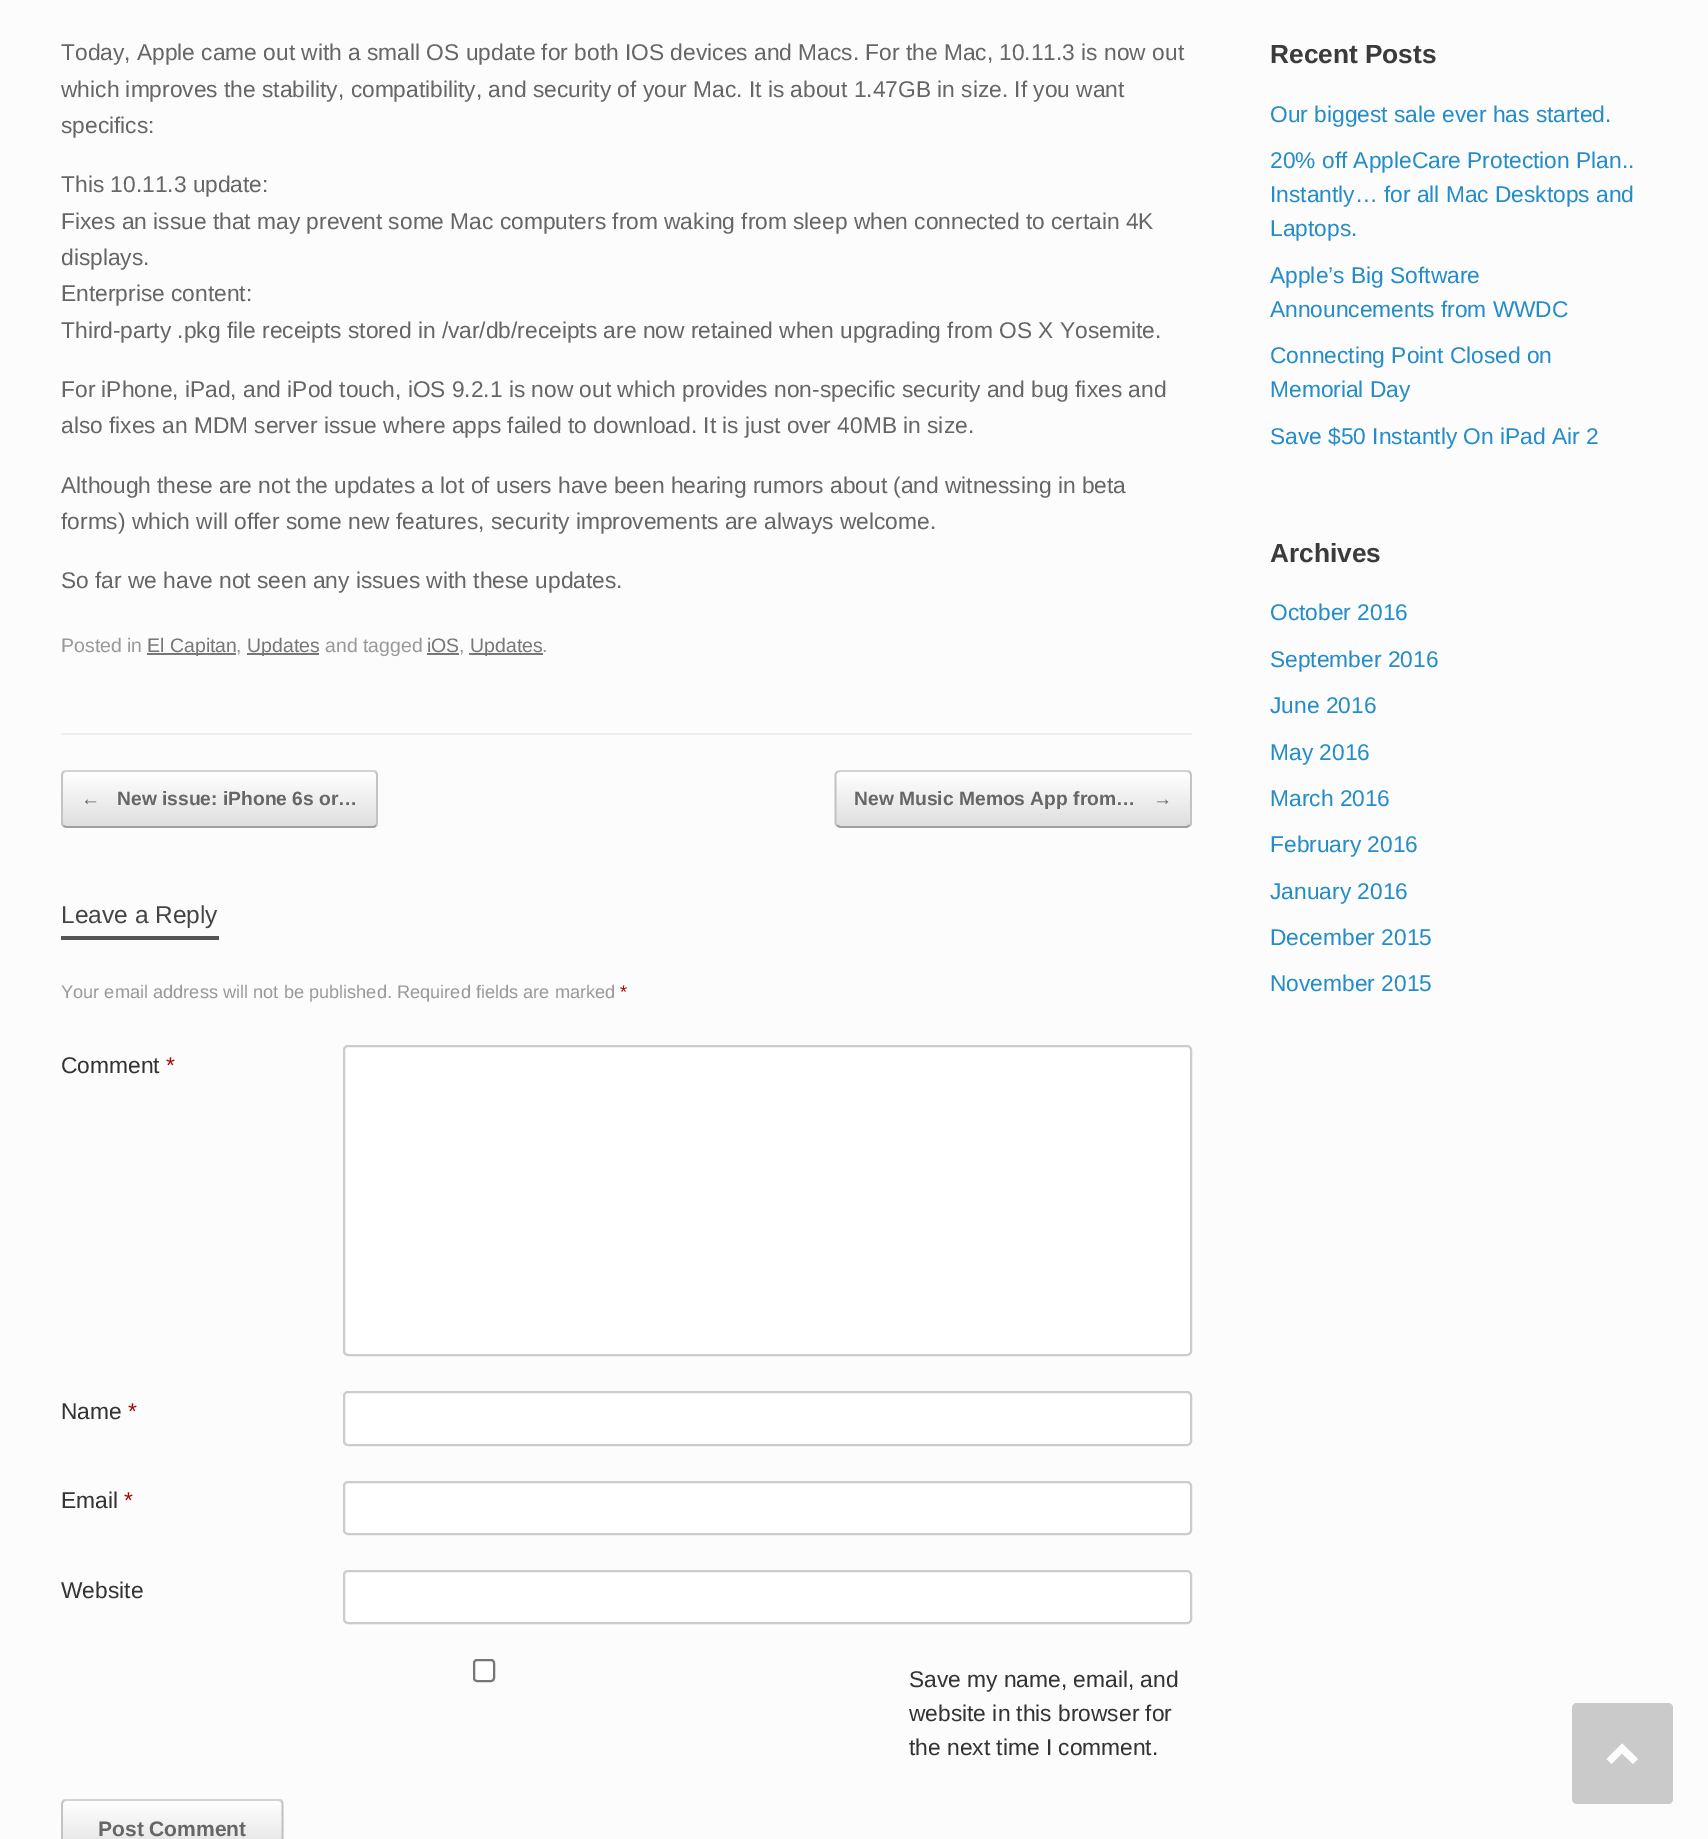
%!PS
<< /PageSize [1708 1839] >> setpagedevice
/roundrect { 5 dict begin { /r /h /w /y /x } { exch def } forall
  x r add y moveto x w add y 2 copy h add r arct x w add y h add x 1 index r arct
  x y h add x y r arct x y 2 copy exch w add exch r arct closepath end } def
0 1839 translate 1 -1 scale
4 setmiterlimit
0.988 setgray
0 0 1708 1839 rectfill
0.933 setgray
61 733 1131 2 rectfill
/LiberationSans-Regular [22.75 0 0 -22.75 0 0] selectfont
0.4 setgray
61 60 moveto (Today, Apple came out with a small OS update for both IOS devices and Macs. For the Mac, 10.11.3 is now out) show
61 97 moveto (which improves the stability, compatibility, and security of your Mac. It is about 1.47GB in size. If you want) show
61 133 moveto (specifics:) show
61 192 moveto (This 10.11.3 update:) show
61 229 moveto (Fixes an issue that may prevent some Mac computers from waking from sleep when connected to certain 4K) show
61 265 moveto (displays.) show
61 301 moveto (Enterprise content:) show
61 338 moveto (Third-party .pkg file receipts stored in /var/db/receipts are now retained when upgrading from OS X Yosemite.) show
61 397 moveto (For iPhone, iPad, and iPod touch, iOS 9.2.1 is now out which provides non-specific security and bug fixes and) show
61 433 moveto (also fixes an MDM server issue where apps failed to download. It is just over 40MB in size.) show
61 493 moveto (Although these are not the updates a lot of users have been hearing rumors about \(and witnessing in beta) show
61 529 moveto (forms\) which will offer some new features, security improvements are always welcome.) show
61 588 moveto (So far we have not seen any issues with these updates.) show
/LiberationSans-Regular [19.5 0 0 -19.5 0 0] selectfont
0.6 setgray
61 652 moveto (Posted in) show
0.467 setgray
147 653 89 2 rectfill
147 652 moveto (El Capitan) show
0.6 setgray
236 652 moveto (,) show
0.467 setgray
247 653 72 2 rectfill
247 652 moveto (Updates) show
0.6 setgray
325 652 moveto (and tagged) show
0.467 setgray
427 652 moveto (iOS) show
427 653 32 2 rectfill
0.6 setgray
459 652 moveto (,) show
0.467 setgray
469 653 74 2 rectfill
470 652 moveto (Updates) show
0.6 setgray
542 652 moveto (.) show
gsave
61 770 317 58 5 roundrect clip newpath
gsave newpath 61 770 moveto 378 770 lineto 378 772 lineto 61 772 lineto closepath clip newpath
<< /ShadingType 2 /ColorSpace /DeviceRGB /Coords [63 772 63 718] /Extend [true true] /Function << /FunctionType 2 /Domain [0 1] /C0 [0.875 0.875 0.875] /C1 [1 1 1] /N 1 >> >> shfill grestore
gsave newpath 61 772 moveto 378 772 lineto 378 826 lineto 61 826 lineto closepath clip newpath
<< /ShadingType 2 /ColorSpace /DeviceRGB /Coords [63 826 63 772] /Extend [true true] /Function << /FunctionType 2 /Domain [0 1] /C0 [0.875 0.875 0.875] /C1 [1 1 1] /N 1 >> >> shfill grestore
gsave newpath 61 826 moveto 378 826 lineto 378 828 lineto 61 828 lineto closepath clip newpath
<< /ShadingType 2 /ColorSpace /DeviceRGB /Coords [63 880 63 826] /Extend [true true] /Function << /FunctionType 2 /Domain [0 1] /C0 [0.875 0.875 0.875] /C1 [1 1 1] /N 1 >> >> shfill grestore
grestore
0.824 setgray
1.8 setlinewidth
newpath 63.5 772 moveto 64 771.5 65.5 771 66.5 771 curveto 373 771 lineto 374 771 375 771.5 376 772 curveto stroke
0.765 setgray
newpath 376 772 moveto 376.5 773 377 774 377 775 curveto 377 822.5 lineto 377 823.5 376.5 825 376 825.5 curveto stroke
0.624 setgray
newpath 376 825.5 moveto 375 826.5 374 827 373 827 curveto 66.5 827 lineto 65.5 827 64 826.5 63.5 825.5 curveto stroke
0.765 setgray
newpath 63.5 825.5 moveto 62.5 825 62 823.5 62 822.5 curveto 62 775 lineto 62 774 62.5 773 63.5 772 curveto stroke
/LiberationSans-Bold [19.25 0 0 -19.25 0 0] selectfont
0.4 setgray
81 805 moveto (←) show
117 805 moveto (New issue: iPhone 6s or…) show
gsave
835 770 357 58 5 roundrect clip newpath
gsave newpath 835 770 moveto 1192 770 lineto 1192 772 lineto 835 772 lineto closepath clip newpath
<< /ShadingType 2 /ColorSpace /DeviceRGB /Coords [837 772 837 718] /Extend [true true] /Function << /FunctionType 2 /Domain [0 1] /C0 [0.875 0.875 0.875] /C1 [1 1 1] /N 1 >> >> shfill grestore
gsave newpath 835 772 moveto 1192 772 lineto 1192 826 lineto 835 826 lineto closepath clip newpath
<< /ShadingType 2 /ColorSpace /DeviceRGB /Coords [837 826 837 772] /Extend [true true] /Function << /FunctionType 2 /Domain [0 1] /C0 [0.875 0.875 0.875] /C1 [1 1 1] /N 1 >> >> shfill grestore
gsave newpath 835 826 moveto 1192 826 lineto 1192 828 lineto 835 828 lineto closepath clip newpath
<< /ShadingType 2 /ColorSpace /DeviceRGB /Coords [837 880 837 826] /Extend [true true] /Function << /FunctionType 2 /Domain [0 1] /C0 [0.875 0.875 0.875] /C1 [1 1 1] /N 1 >> >> shfill grestore
grestore
0.824 setgray
newpath 837 772 moveto 840 771 lineto 1186.5 771 lineto 1189.5 772 lineto stroke
0.765 setgray
newpath 1189.5 772 moveto 1190.5 773 1191 774 1191 775 curveto 1191 822.5 lineto 1191 823.5 1190.5 825 1189.5 825.5 curveto stroke
0.624 setgray
newpath 1189.5 825.5 moveto 1186.5 827 lineto 840 827 lineto 837 825.5 lineto stroke
0.765 setgray
newpath 837 825.5 moveto 836 825 835.5 823.5 835.5 822.5 curveto 835.5 775 lineto 835.5 774 836 773 837 772 curveto stroke
0.4 setgray
854 805 moveto (New Music Memos App from…) show
1153 805 moveto (→) show
0.333 setgray
61 936 158 4 rectfill
/LiberationSans-Regular [24.5 0 0 -24.5 0 0] selectfont
0.267 setgray
61 923 moveto (Leave a Reply) show
/LiberationSans-Regular [18.2 0 0 -18.2 0 0] selectfont
0.6 setgray
61 998 moveto (Your email address will not be published. Required fields are marked) show
0.643 0.031 0.008 setrgbcolor
620 998 moveto (*) show
/LiberationSans-Regular [22.75 0 0 -22.75 0 0] selectfont
0.2 setgray
61 1073 moveto (Comment) show
0.643 0.031 0.008 setrgbcolor
166 1073 moveto (*) show
1 setgray
344 1046 847 309 4 roundrect gsave fill grestore
0.8 setgray
2 setlinewidth
stroke
0.2 setgray
61 1419 moveto (Name) show
0.643 0.031 0.008 setrgbcolor
128 1419 moveto (*) show
1 setgray
344 1392 847 53 4 roundrect gsave fill grestore
0.8 setgray
stroke
0.2 setgray
61 1508 moveto (Email) show
0.643 0.031 0.008 setrgbcolor
124 1508 moveto (*) show
1 setgray
344 1482 847 52 4 roundrect gsave fill grestore
0.8 setgray
stroke
0.2 setgray
61 1598 moveto (Website) show
1 setgray
344 1571 847 52 4 roundrect gsave fill grestore
0.8 setgray
stroke
1 setgray
474 1660 20 21 3 roundrect gsave fill grestore
0.463 setgray
stroke
0.2 setgray
909 1687 moveto (Save my name, email, and) show
909 1721 moveto (website in this browser for) show
909 1755 moveto (the next time I comment.) show
gsave
61 1799 223 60 5 roundrect clip newpath
gsave newpath 61 1799 moveto 284 1799 lineto 284 1801 lineto 61 1801 lineto closepath clip newpath
<< /ShadingType 2 /ColorSpace /DeviceRGB /Coords [63 1801 63 1745] /Extend [true true] /Function << /FunctionType 2 /Domain [0 1] /C0 [0.875 0.875 0.875] /C1 [1 1 1] /N 1 >> >> shfill grestore
gsave newpath 61 1801 moveto 284 1801 lineto 284 1839 lineto 61 1839 lineto closepath clip newpath
<< /ShadingType 2 /ColorSpace /DeviceRGB /Coords [63 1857 63 1801] /Extend [true true] /Function << /FunctionType 2 /Domain [0 1] /C0 [0.875 0.875 0.875] /C1 [1 1 1] /N 1 >> >> shfill grestore
grestore
0.824 setgray
1.8 setlinewidth
newpath 63.5 1801 moveto 66 1800 lineto 243 1800 lineto 278 1800 lineto 281.5 1801 lineto stroke
0.765 setgray
newpath 281.5 1801 moveto 282 1802 282.5 1803 282.5 1804 curveto 282.5 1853 lineto 282.5 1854.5 282 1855.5 281.5 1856.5 curveto stroke
newpath 63.5 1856.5 moveto 62.5 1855.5 62 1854.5 62 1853 curveto 62 1804 lineto 62 1803 62.5 1802 63.5 1801 curveto stroke
/LiberationSans-Bold [21 0 0 -21 0 0] selectfont
0.4 setgray
98 1836 moveto (Post Comment) show
/LiberationSans-Bold [26.25 0 0 -26.25 0 0] selectfont
0.231 setgray
1270 63 moveto (Recent Posts) show
/LiberationSans-Regular [22.75 0 0 -22.75 0 0] selectfont
0.141 0.549 0.784 setrgbcolor
1270 122 moveto (Our biggest sale ever has started.) show
1270 168 moveto (20% off AppleCare Protection Plan..) show
1270 202 moveto (Instantly… for all Mac Desktops and) show
1270 236 moveto (Laptops.) show
1270 283 moveto (Apple’s Big Software) show
1270 317 moveto (Announcements from WWDC) show
1270 363 moveto (Connecting Point Closed on) show
1270 397 moveto (Memorial Day) show
1270 444 moveto (Save $50 Instantly On iPad Air 2) show
/LiberationSans-Bold [26.25 0 0 -26.25 0 0] selectfont
0.231 setgray
1270 562 moveto (Archives) show
/LiberationSans-Regular [22.75 0 0 -22.75 0 0] selectfont
0.141 0.549 0.784 setrgbcolor
1270 620 moveto (October 2016) show
1270 667 moveto (September 2016) show
1270 713 moveto (June 2016) show
1270 760 moveto (May 2016) show
1270 806 moveto (March 2016) show
1270 852 moveto (February 2016) show
1270 899 moveto (January 2016) show
1270 945 moveto (December 2015) show
1270 991 moveto (November 2015) show
0.792 setgray
1572 1703 101 101 5 roundrect fill
0.992 setgray
newpath 1638 1759 moveto 1622 1743.5 lineto 1606.5 1759 lineto 1611.5 1764 lineto 1622 1753.5 lineto 1633 1764 lineto closepath fill
showpage
